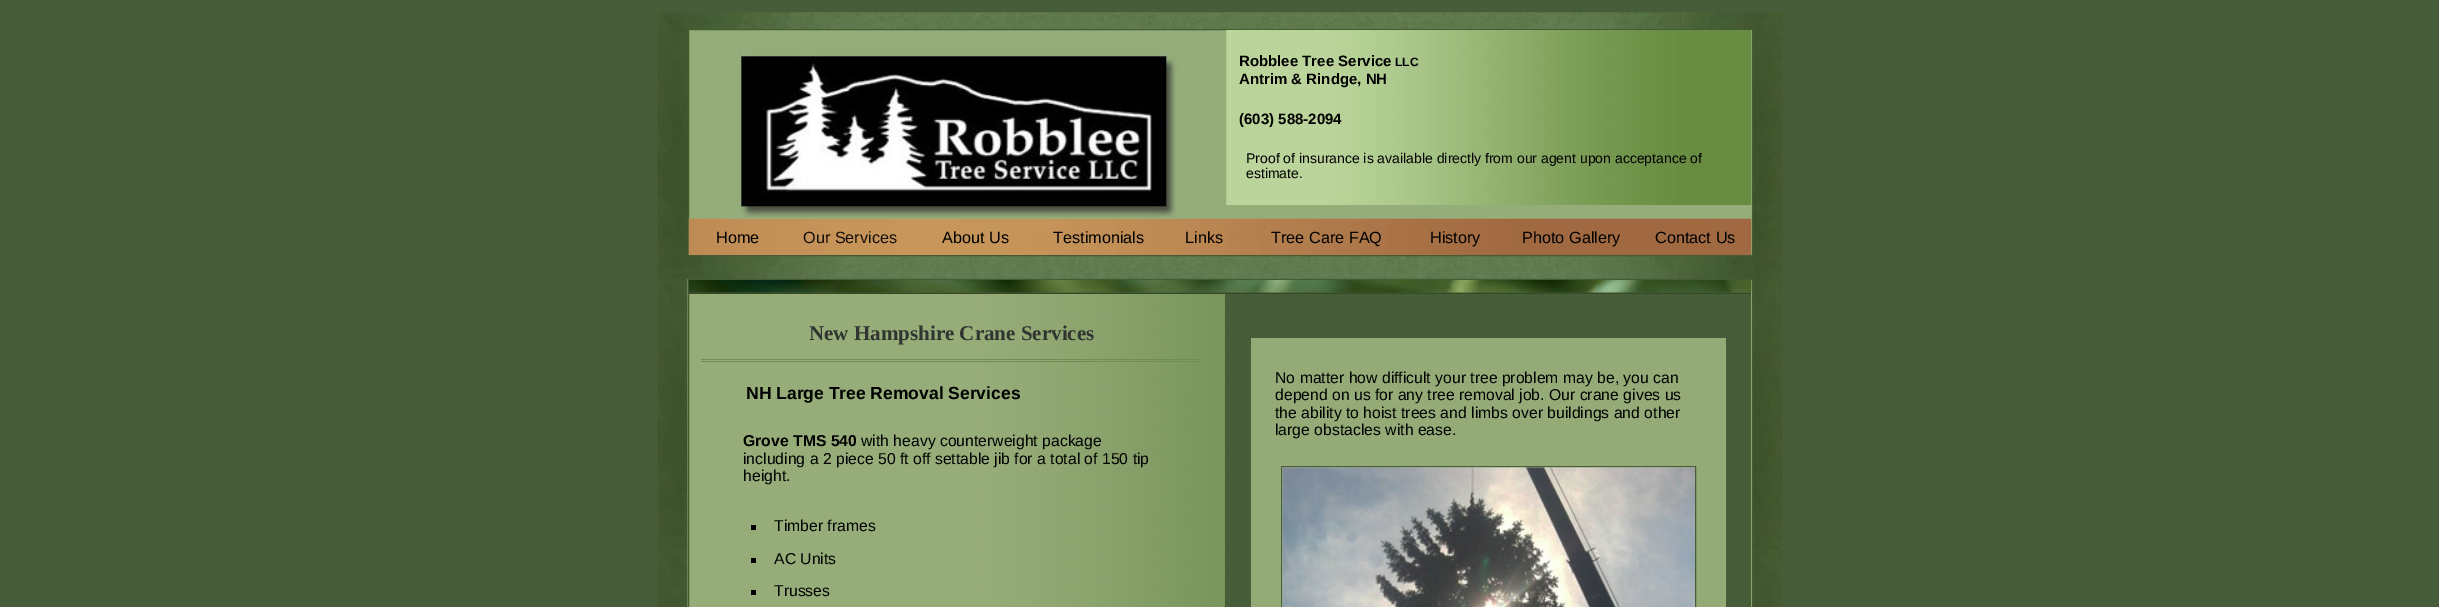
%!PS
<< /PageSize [2439 607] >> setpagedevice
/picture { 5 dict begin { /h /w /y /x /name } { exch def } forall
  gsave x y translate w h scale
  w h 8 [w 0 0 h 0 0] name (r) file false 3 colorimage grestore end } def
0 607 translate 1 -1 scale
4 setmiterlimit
0.278 0.365 0.224 setrgbcolor
0 0 2439 607 rectfill
(img1.rgb) 657 12 1126 595 picture
658 13 1125 266 rectfill
(img2.rgb) 657 12 1126 267 picture
0.584 0.678 0.471 setrgbcolor
newpath 688.5 29.5 moveto 1752.5 29.5 lineto 1752.5 255.5 lineto 688.5 255.5 lineto closepath gsave fill grestore
0.271 0.361 0.196 setrgbcolor
stroke
(img5.rgb) 688 218 1064 37 picture
(img3.rgb) 729 49 451 170 picture
(img4.rgb) 1226 30 526 175 picture
/LiberationSans-Bold [15 0 0 -15 0 0] selectfont
0 setgray
1239 66 moveto (Robblee Tree Service) show
/LiberationSans-Bold [12 0 0 -12 0 0] selectfont
1395 66 moveto (LLC) show
/LiberationSans-Bold [15 0 0 -15 0 0] selectfont
1239 84 moveto (Antrim & Rindge, NH) show
1239 124 moveto (\(603\) 588-2094) show
/LiberationSans-Regular [14 0 0 -14 0 0] selectfont
1246 163 moveto (Proof of insurance is available directly from our agent upon acceptance of) show
1246 178 moveto (estimate.) show
/LiberationSans-Regular [16.25 0 0 -16.25 0 0] selectfont
716 243 moveto (Home) show
0.078 0.059 0.035 setrgbcolor
803 243 moveto (Our Services) show
0 setgray
942 243 moveto (About Us) show
1053 243 moveto (Testimonials) show
1185 243 moveto (Links) show
1271 243 moveto (Tree Care FAQ) show
1430 243 moveto (History) show
1522 243 moveto (Photo Gallery) show
1655 243 moveto (Contact Us) show
0.588 0.675 0.471 setrgbcolor
1751 280 1 327 rectfill
(img6.rgb) 687 279 1065 328 picture
0.271 0.361 0.196 setrgbcolor
688.5 279.5 1064 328 rectstroke
0.267 0.337 0.247 setrgbcolor
689 292 1062 1 rectfill
0.204 0.294 0.122 setrgbcolor
689 293 1062 1 rectfill
(img7.rgb) 688 280 1064 13 picture
0.439 0.557 0.329 setrgbcolor
701 359 500 1 rectfill
701 361 500 1 rectfill
/LiberationSerif-Bold [21 0 0 -21 0 0] selectfont
0.192 0.208 0.192 setrgbcolor
809 340 moveto (New Hampshire Crane Services) show
/LiberationSans-Bold [17.5 0 0 -17.5 0 0] selectfont
0 setgray
746 399 moveto (NH Large Tree Removal Services) show
/LiberationSans-Bold [15.75 0 0 -15.75 0 0] selectfont
743 446 moveto (Grove TMS 540) show
/LiberationSans-Regular [15.75 0 0 -15.75 0 0] selectfont
861 446 moveto (with heavy counterweight package) show
743 464 moveto (including a 2 piece 50 ft off settable jib for a total of 150 tip) show
743 481 moveto (height.) show
751 525 5 5 rectfill
774 531 moveto (Timber frames) show
751 558 5 5 rectfill
774 564 moveto (AC Units) show
751 590 5 5 rectfill
774 596 moveto (Trusses) show
0.278 0.365 0.224 setrgbcolor
1226 294 525 313 rectfill
0.271 0.361 0.196 setrgbcolor
1225 294 1 313 rectfill
0.58 0.671 0.471 setrgbcolor
1251 338 475 269 rectfill
0 setgray
1275 383 moveto (No matter how difficult your tree problem may be, you can) show
1275 400 moveto (depend on us for any tree removal job. Our crane gives us) show
1275 418 moveto (the ability to hoist trees and limbs over buildings and other) show
1275 435 moveto (large obstacles with ease.) show
0.278 0.365 0.224 setrgbcolor
1281.5 466.5 414 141 rectstroke
(img8.rgb) 1282 467 413 140 picture
showpage
